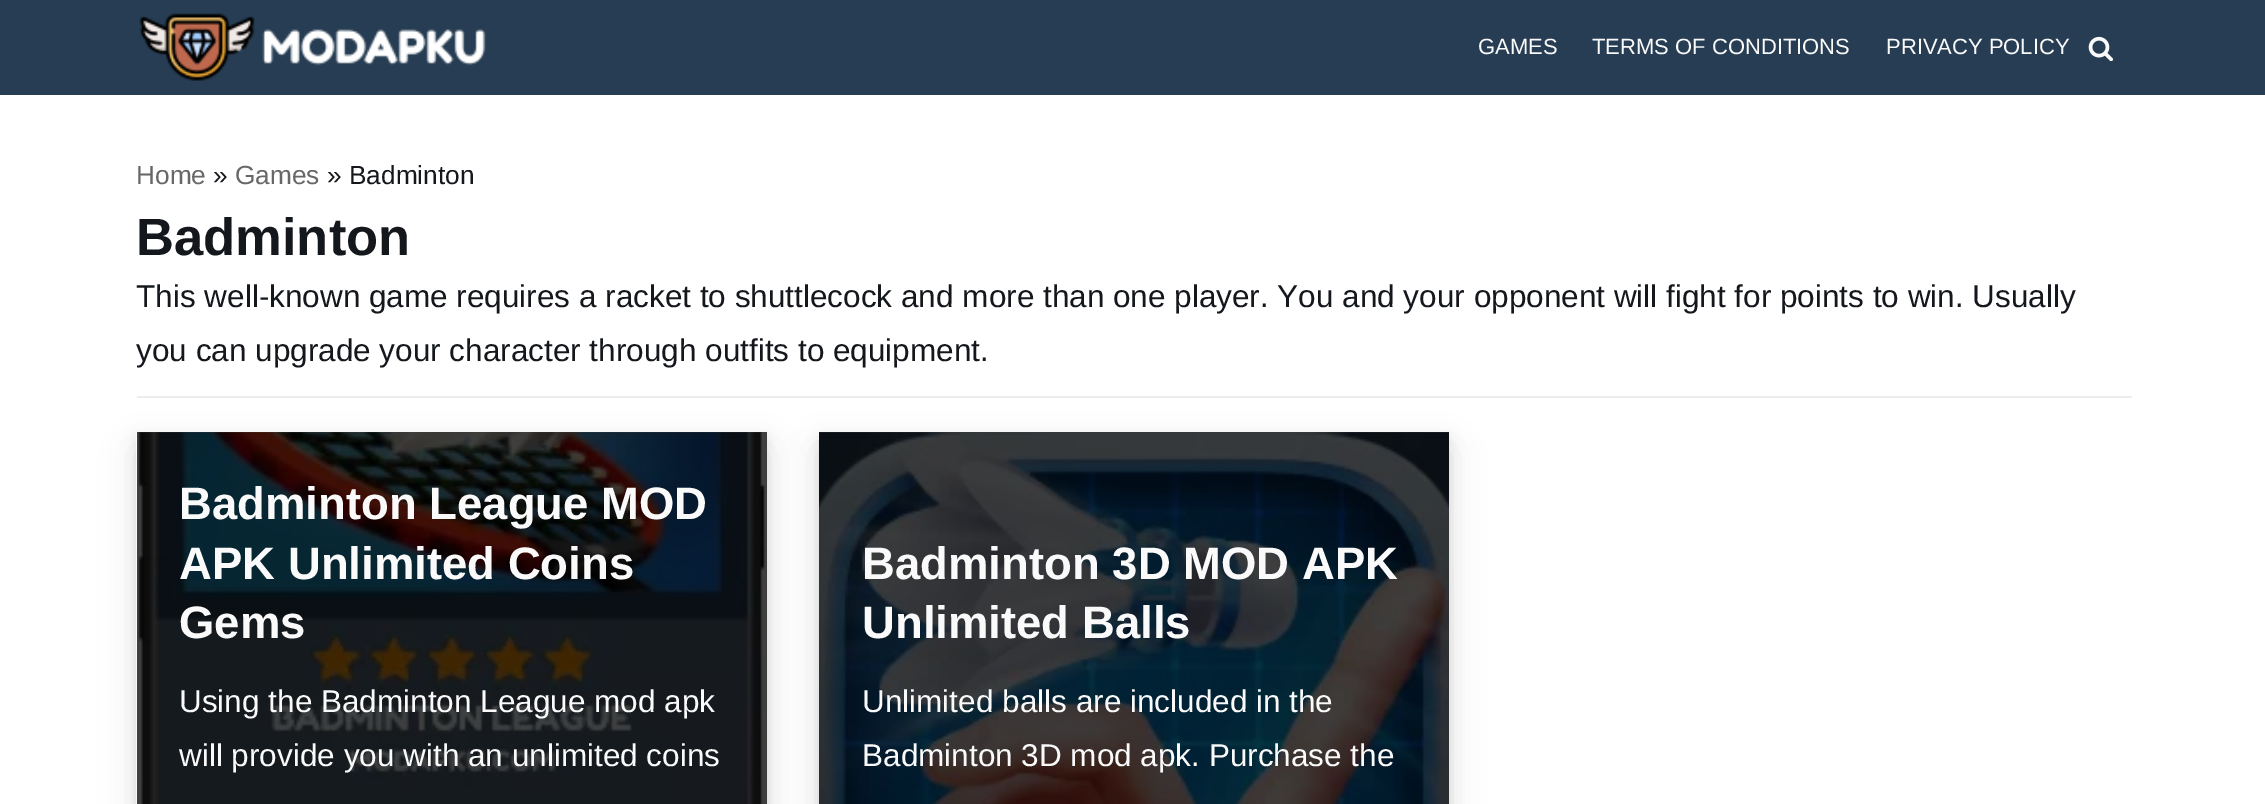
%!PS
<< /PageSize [2265 804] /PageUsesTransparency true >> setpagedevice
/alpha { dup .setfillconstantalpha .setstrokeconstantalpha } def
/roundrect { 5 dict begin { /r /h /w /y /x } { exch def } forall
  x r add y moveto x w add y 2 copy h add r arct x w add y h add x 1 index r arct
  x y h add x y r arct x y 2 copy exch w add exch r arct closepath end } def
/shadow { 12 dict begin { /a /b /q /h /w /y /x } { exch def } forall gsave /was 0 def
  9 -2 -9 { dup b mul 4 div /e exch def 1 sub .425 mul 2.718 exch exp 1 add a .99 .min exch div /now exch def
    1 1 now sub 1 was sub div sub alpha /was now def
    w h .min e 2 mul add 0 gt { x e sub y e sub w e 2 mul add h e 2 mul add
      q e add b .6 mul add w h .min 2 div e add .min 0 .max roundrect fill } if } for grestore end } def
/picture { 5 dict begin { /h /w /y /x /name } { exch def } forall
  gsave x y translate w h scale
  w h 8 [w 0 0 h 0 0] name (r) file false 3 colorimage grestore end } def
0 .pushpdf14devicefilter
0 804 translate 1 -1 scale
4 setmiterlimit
1 setgray
0 0 2265 804 rectfill
0.153 0.239 0.325 setrgbcolor
0 0 2265 95 rectfill
(img1.rgb) 139 13 347 68 picture
/LiberationSans-Regular [22 0 0 -22 0 0] selectfont
0.98 setgray
1478 54 moveto (GAMES) show
1592 54 moveto (TERMS OF CONDITIONS) show
1886 54 moveto (PRIVACY POLICY) show
(img2.rgb) 2088 36 25 25 picture
0.929 setgray
137 396 1995 2 rectfill
/LiberationSans-Regular [26.25 0 0 -26.25 0 0] selectfont
0.404 setgray
136 184 moveto (Home) show
0.078 0.09 0.11 setrgbcolor
213 184 moveto (») show
0.404 setgray
235 184 moveto (Games) show
0.078 0.09 0.11 setrgbcolor
327 184 moveto (» Badminton) show
/LiberationSans-Bold [52.5 0 0 -52.5 0 0] selectfont
136 255 moveto (Badminton) show
/LiberationSans-Regular [31.5 0 0 -31.5 0 0] selectfont
136 307 moveto (This well-known game requires a racket to shuttlecock and more than one player. You and your opponent will fight for points to win. Usually) show
136 361 moveto (you can upgrade your character through outfits to equipment.) show
0 setgray
137 439 630 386 0 7 0.1 shadow
137 450 630 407 0 17.5 0.1 shadow
(img3.rgb) 136 432 631 372 picture
0.75 alpha
137 432 630 372 rectfill
/LiberationSans-Bold [45.5 0 0 -45.5 0 0] selectfont
1 alpha
0.98 setgray
179 519 moveto (Badminton League MOD) show
179 579 moveto (APK Unlimited Coins) show
179 638 moveto (Gems) show
/LiberationSans-Regular [31.5 0 0 -31.5 0 0] selectfont
179 712 moveto (Using the Badminton League mod apk) show
179 766 moveto (will provide you with an unlimited coins) show
0 setgray
819 439 630 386 0 7 0.1 shadow
819 450 630 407 0 17.5 0.1 shadow
(img4.rgb) 819 432 630 372 picture
0.75 alpha
819 432 630 372 rectfill
/LiberationSans-Bold [45.5 0 0 -45.5 0 0] selectfont
1 alpha
0.98 setgray
862 579 moveto (Badminton 3D MOD APK) show
862 638 moveto (Unlimited Balls) show
/LiberationSans-Regular [31.5 0 0 -31.5 0 0] selectfont
862 712 moveto (Unlimited balls are included in the) show
862 766 moveto (Badminton 3D mod apk. Purchase the) show
.poppdf14devicefilter showpage
